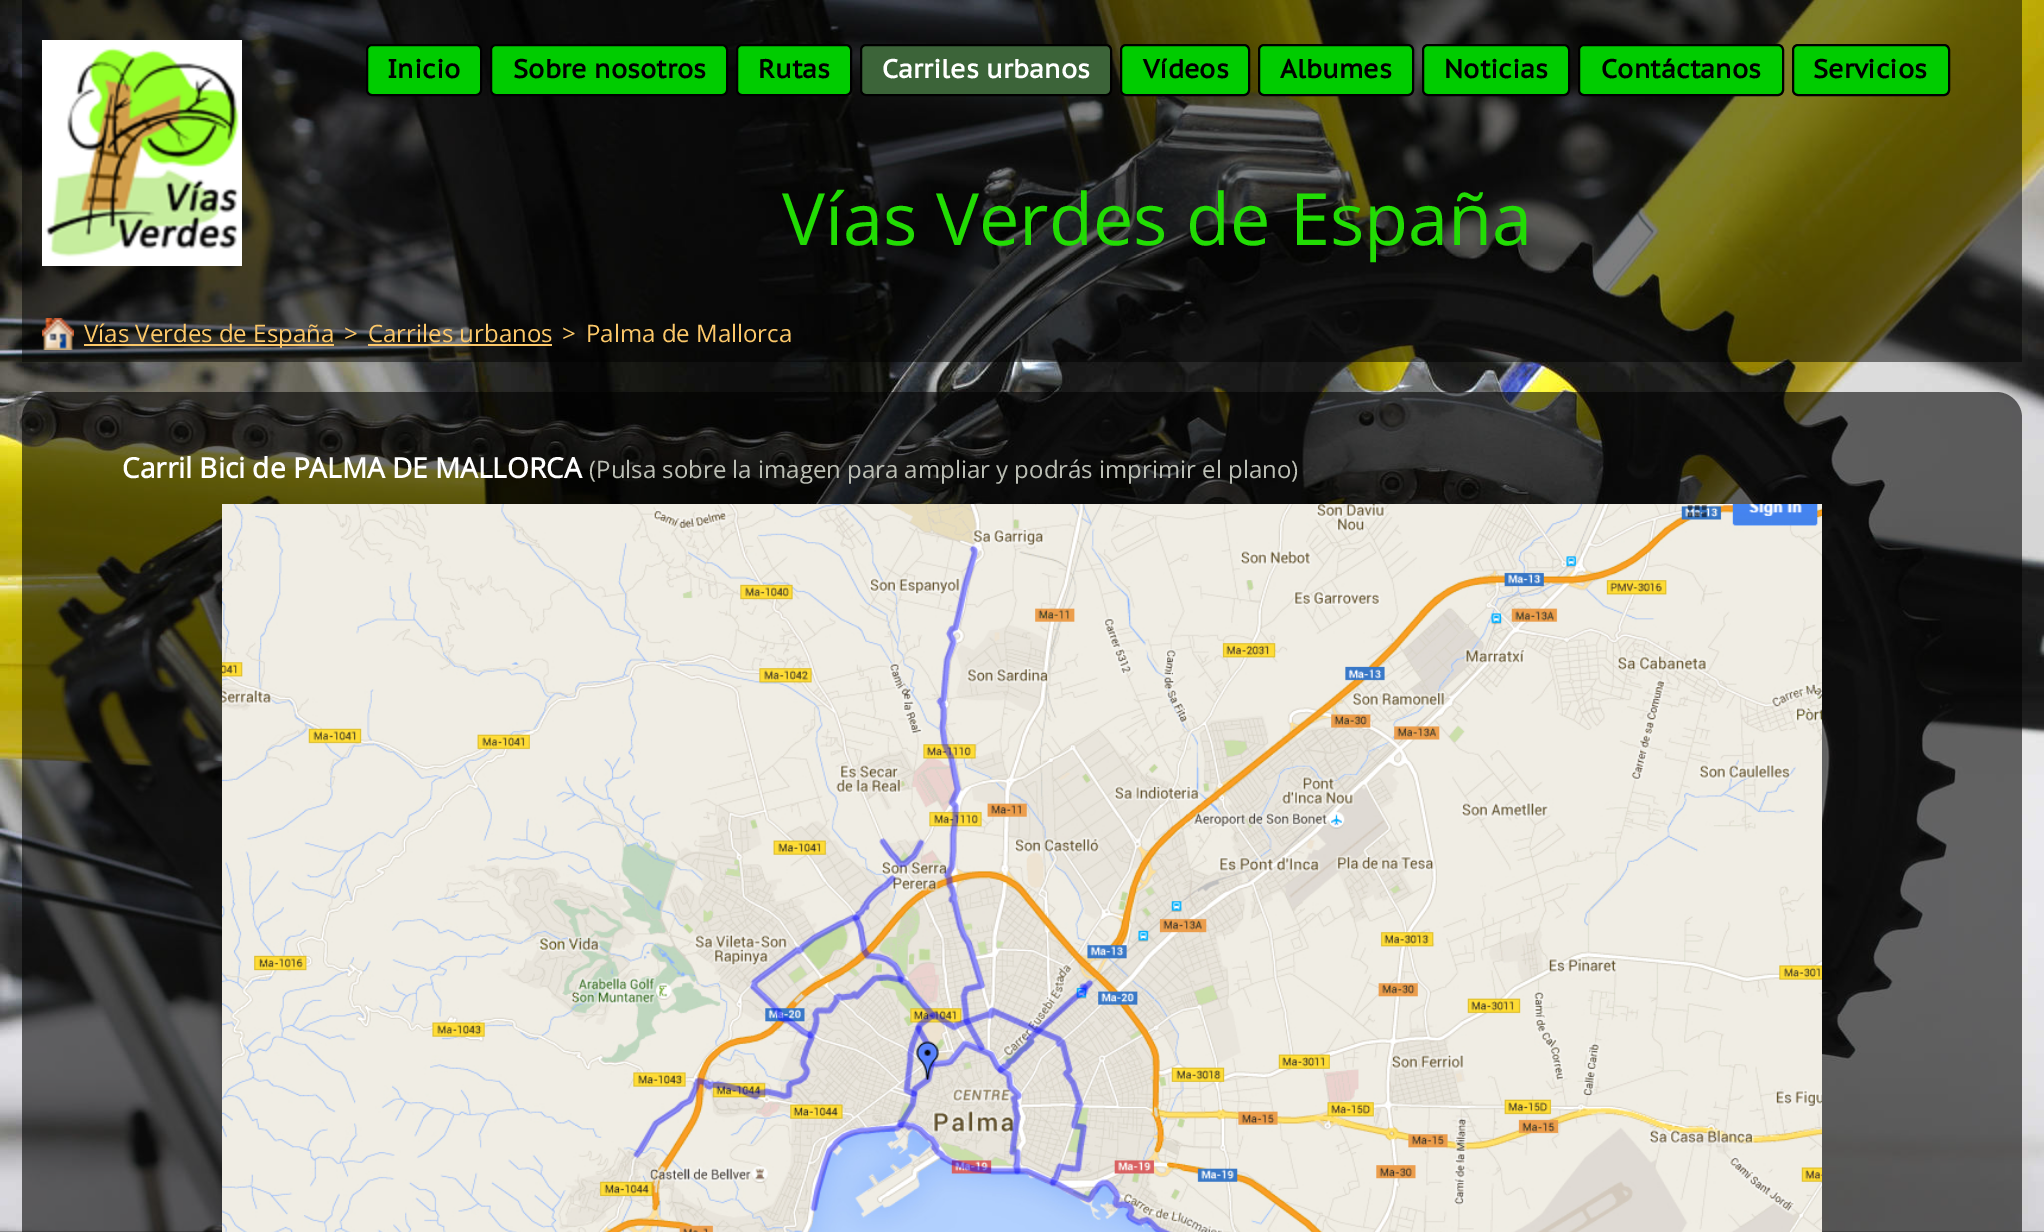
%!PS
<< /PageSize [2044 1232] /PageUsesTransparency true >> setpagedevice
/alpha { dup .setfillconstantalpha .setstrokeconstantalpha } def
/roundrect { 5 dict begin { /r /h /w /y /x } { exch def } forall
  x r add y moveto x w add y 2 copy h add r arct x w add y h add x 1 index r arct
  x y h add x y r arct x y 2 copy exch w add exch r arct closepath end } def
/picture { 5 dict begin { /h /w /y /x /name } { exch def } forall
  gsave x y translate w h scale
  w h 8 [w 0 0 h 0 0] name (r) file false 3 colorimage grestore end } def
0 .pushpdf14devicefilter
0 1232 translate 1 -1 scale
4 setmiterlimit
1 setgray
0 0 2044 1232 rectfill
(img1.rgb) 0 0 2044 1232 picture
0.5 alpha
0 setgray
22 0 2000 362 rectfill
1 alpha
(img2.rgb) 42 40 200 226 picture
0 0.8 0 setrgbcolor
367 45 114 50 5 roundrect gsave fill grestore
0 setgray
2 setlinewidth
stroke
/PTSansCaption-Bold [26 0 0 -26 0 0] selectfont
387 78 moveto (Inicio) show
0 0.8 0 setrgbcolor
491 45 236 50 5 roundrect gsave fill grestore
0 setgray
stroke
513 78 moveto (Sobre nosotros) show
0 0.8 0 setrgbcolor
737 45 114 50 5 roundrect gsave fill grestore
0 setgray
stroke
758 78 moveto (Rutas) show
0.235 0.392 0.224 setrgbcolor
861 45 250 50 5 roundrect gsave fill grestore
0 setgray
stroke
1 setgray
882 78 moveto (Carriles urbanos) show
0 0.8 0 setrgbcolor
1121 45 128 50 5 roundrect gsave fill grestore
0 setgray
stroke
1143 78 moveto (Vídeos) show
0 0.8 0 setrgbcolor
1259 45 154 50 5 roundrect gsave fill grestore
0 setgray
stroke
1280 78 moveto (Albumes) show
0 0.8 0 setrgbcolor
1423 45 146 50 5 roundrect gsave fill grestore
0 setgray
stroke
1444 78 moveto (Noticias) show
0 0.8 0 setrgbcolor
1579 45 204 50 5 roundrect gsave fill grestore
0 setgray
stroke
1601 78 moveto (Contáctanos) show
0 0.8 0 setrgbcolor
1793 45 156 50 5 roundrect gsave fill grestore
0 setgray
stroke
1813 78 moveto (Servicios) show
/OpenSans-Regular [72 0 0 -72 0 0] selectfont
0.133 0.863 0.016 setrgbcolor
782 245 moveto (Vías Verdes de España) show
(img3.rgb) 42 318 32 32 picture
0.988 0.784 0.412 setrgbcolor
84 344 250 2 rectfill
/OpenSans-Regular [24 0 0 -24 0 0] selectfont
84 342 moveto (Vías Verdes de España) show
344 342 moveto (>) show
368 342 moveto (Carriles urbanos) show
368 344 184 2 rectfill
562 342 moveto (>) show
586 342 moveto (Palma de Mallorca) show
0.58 alpha
0 setgray
22 392 2000 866 26 roundrect fill
/OpenSans-Bold [28 0 0 -28 0 0] selectfont
1 alpha
1 setgray
122 478 moveto (Carril Bici de PALMA DE MALLORCA) show
/OpenSans-Regular [24 0 0 -24 0 0] selectfont
0.737 0.749 0.71 setrgbcolor
589 478 moveto (\(Pulsa sobre la imagen para ampliar y podrás imprimir el plano\)) show
(img4.rgb) 222 504 1600 728 picture
.poppdf14devicefilter showpage
